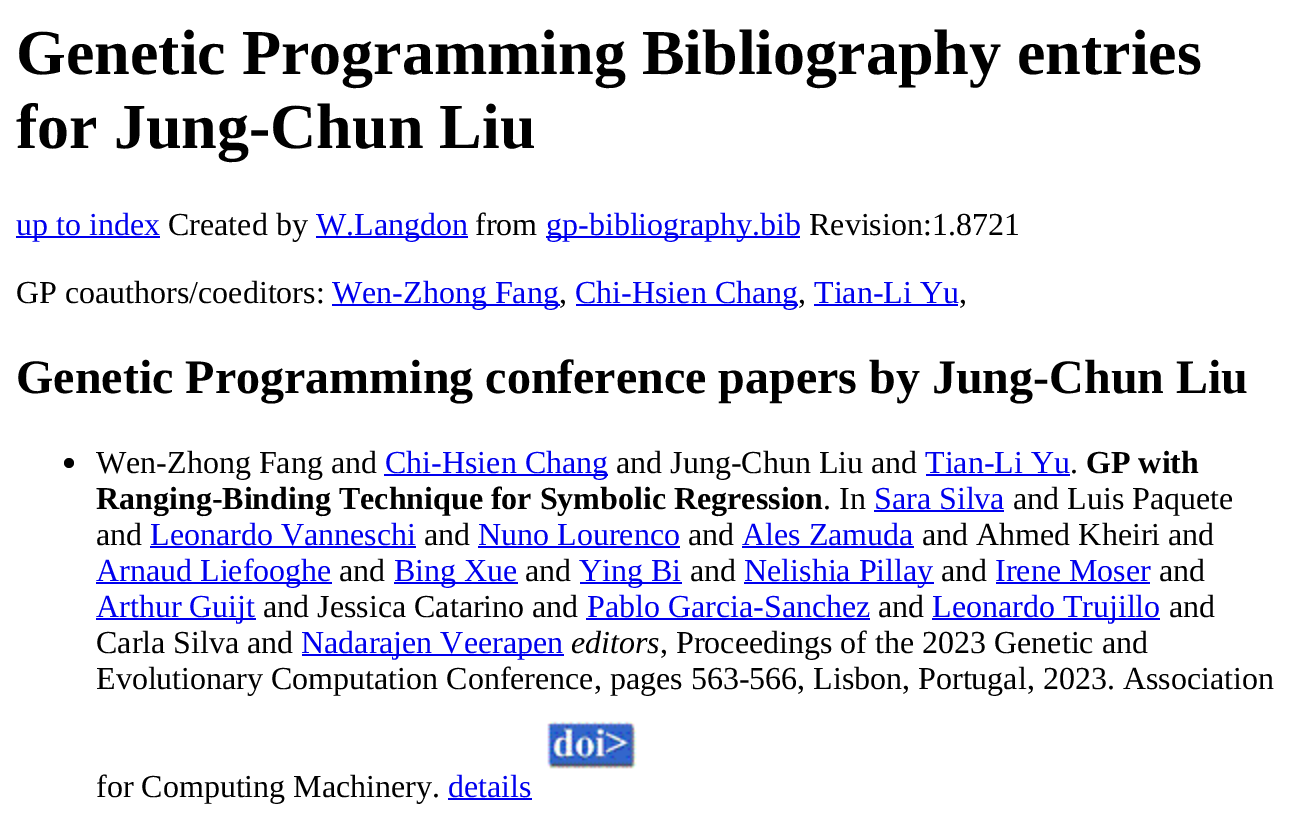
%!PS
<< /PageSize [1290 837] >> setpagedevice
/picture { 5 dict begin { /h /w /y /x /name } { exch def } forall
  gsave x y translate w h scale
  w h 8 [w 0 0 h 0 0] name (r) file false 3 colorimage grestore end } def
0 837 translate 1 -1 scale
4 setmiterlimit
1 setgray
0 0 1290 837 rectfill
/LiberationSerif-Bold [64 0 0 -64 0 0] selectfont
0 setgray
16 74 moveto (Genetic Programming Bibliography entries) show
16 148 moveto (for Jung-Chun Liu) show
0 0 0.933 setrgbcolor
16 236 144 2 rectfill
/LiberationSerif-Regular [32 0 0 -32 0 0] selectfont
16 235 moveto (up to index) show
0 setgray
168 235 moveto (Created by) show
0 0 0.933 setrgbcolor
316 236 152 2 rectfill
316 235 moveto (W.Langdon) show
0 setgray
475 235 moveto (from) show
0 0 0.933 setrgbcolor
546 236 254 2 rectfill
546 235 moveto (gp-bibliography.bib) show
0 setgray
809 235 moveto (Revision:1.8721) show
16 303 moveto (GP coauthors/coeditors:) show
0 0 0.933 setrgbcolor
332 304 228 2 rectfill
332 303 moveto (Wen-Zhong Fang) show
0 setgray
559 303 moveto (,) show
0 0 0.933 setrgbcolor
576 304 222 2 rectfill
575 303 moveto (Chi-Hsien Chang) show
0 setgray
798 303 moveto (,) show
0 0 0.933 setrgbcolor
814 303 moveto (Tian-Li Yu) show
814 304 144 2 rectfill
0 setgray
959 303 moveto (,) show
/LiberationSerif-Bold [48 0 0 -48 0 0] selectfont
16 393 moveto (Genetic Programming conference papers by Jung-Chun Liu) show
newpath 69 463 5 0 360 arc closepath fill
/LiberationSerif-Regular [32 0 0 -32 0 0] selectfont
96 473 moveto (Wen-Zhong Fang and) show
0 0 0.933 setrgbcolor
384 474 224 2 rectfill
385 473 moveto (Chi-Hsien Chang) show
0 setgray
616 473 moveto (and Jung-Chun Liu and) show
0 0 0.933 setrgbcolor
925 473 moveto (Tian-Li Yu) show
926 474 144 2 rectfill
/LiberationSerif-Bold [32 0 0 -32 0 0] selectfont
0 setgray
1086 473 moveto (GP with) show
/LiberationSerif-Regular [32 0 0 -32 0 0] selectfont
1070 473 moveto (.) show
/LiberationSerif-Bold [32 0 0 -32 0 0] selectfont
96 509 moveto (Ranging-Binding Technique for Symbolic Regression) show
/LiberationSerif-Regular [32 0 0 -32 0 0] selectfont
823 509 moveto (. In) show
0 0 0.933 setrgbcolor
874 509 moveto (Sara Silva) show
874 510 130 2 rectfill
0 setgray
1013 509 moveto (and Luis Paquete) show
96 545 moveto (and) show
0 0 0.933 setrgbcolor
150 545 moveto (Leonardo Vanneschi) show
150 546 266 2 rectfill
0 setgray
424 545 moveto (and) show
0 0 0.933 setrgbcolor
478 545 moveto (Nuno Lourenco) show
478 546 202 2 rectfill
0 setgray
688 545 moveto (and) show
0 0 0.933 setrgbcolor
742 545 moveto (Ales Zamuda) show
742 546 172 2 rectfill
0 setgray
922 545 moveto (and Ahmed Kheiri and) show
0 0 0.933 setrgbcolor
96 582 236 2 rectfill
96 581 moveto (Arnaud Liefooghe) show
0 setgray
339 581 moveto (and) show
0 0 0.933 setrgbcolor
394 582 124 2 rectfill
394 581 moveto (Bing Xue) show
0 setgray
525 581 moveto (and) show
0 0 0.933 setrgbcolor
580 582 102 2 rectfill
579 581 moveto (Ying Bi) show
0 setgray
690 581 moveto (and) show
0 0 0.933 setrgbcolor
744 582 190 2 rectfill
744 581 moveto (Nelishia Pillay) show
0 setgray
941 581 moveto (and) show
0 0 0.933 setrgbcolor
995 581 moveto (Irene Moser) show
996 582 154 2 rectfill
0 setgray
1159 581 moveto (and) show
0 0 0.933 setrgbcolor
96 618 160 2 rectfill
96 617 moveto (Arthur Guijt) show
0 setgray
263 617 moveto (and Jessica Catarino and) show
0 0 0.933 setrgbcolor
587 617 moveto (Pablo Garcia-Sanchez) show
586 618 284 2 rectfill
0 setgray
878 617 moveto (and) show
0 0 0.933 setrgbcolor
932 618 228 2 rectfill
932 617 moveto (Leonardo Trujillo) show
0 setgray
1169 617 moveto (and) show
96 653 moveto (Carla Silva and) show
0 0 0.933 setrgbcolor
302 654 262 2 rectfill
301 653 moveto (Nadarajen Veerapen) show
/LiberationSerif-Italic [32 0 0 -32 0 0] selectfont
0 setgray
571 653 moveto (editors) show
/LiberationSerif-Regular [32 0 0 -32 0 0] selectfont
660 653 moveto (, Proceedings of the 2023 Genetic and) show
96 689 moveto (Evolutionary Computation Conference, pages 563-566, Lisbon, Portugal, 2023. Association) show
(img1.rgb) 547 721 90 48 picture
96 797 moveto (for Computing Machinery.) show
0 0 0.933 setrgbcolor
448 797 moveto (details) show
448 798 84 2 rectfill
showpage
